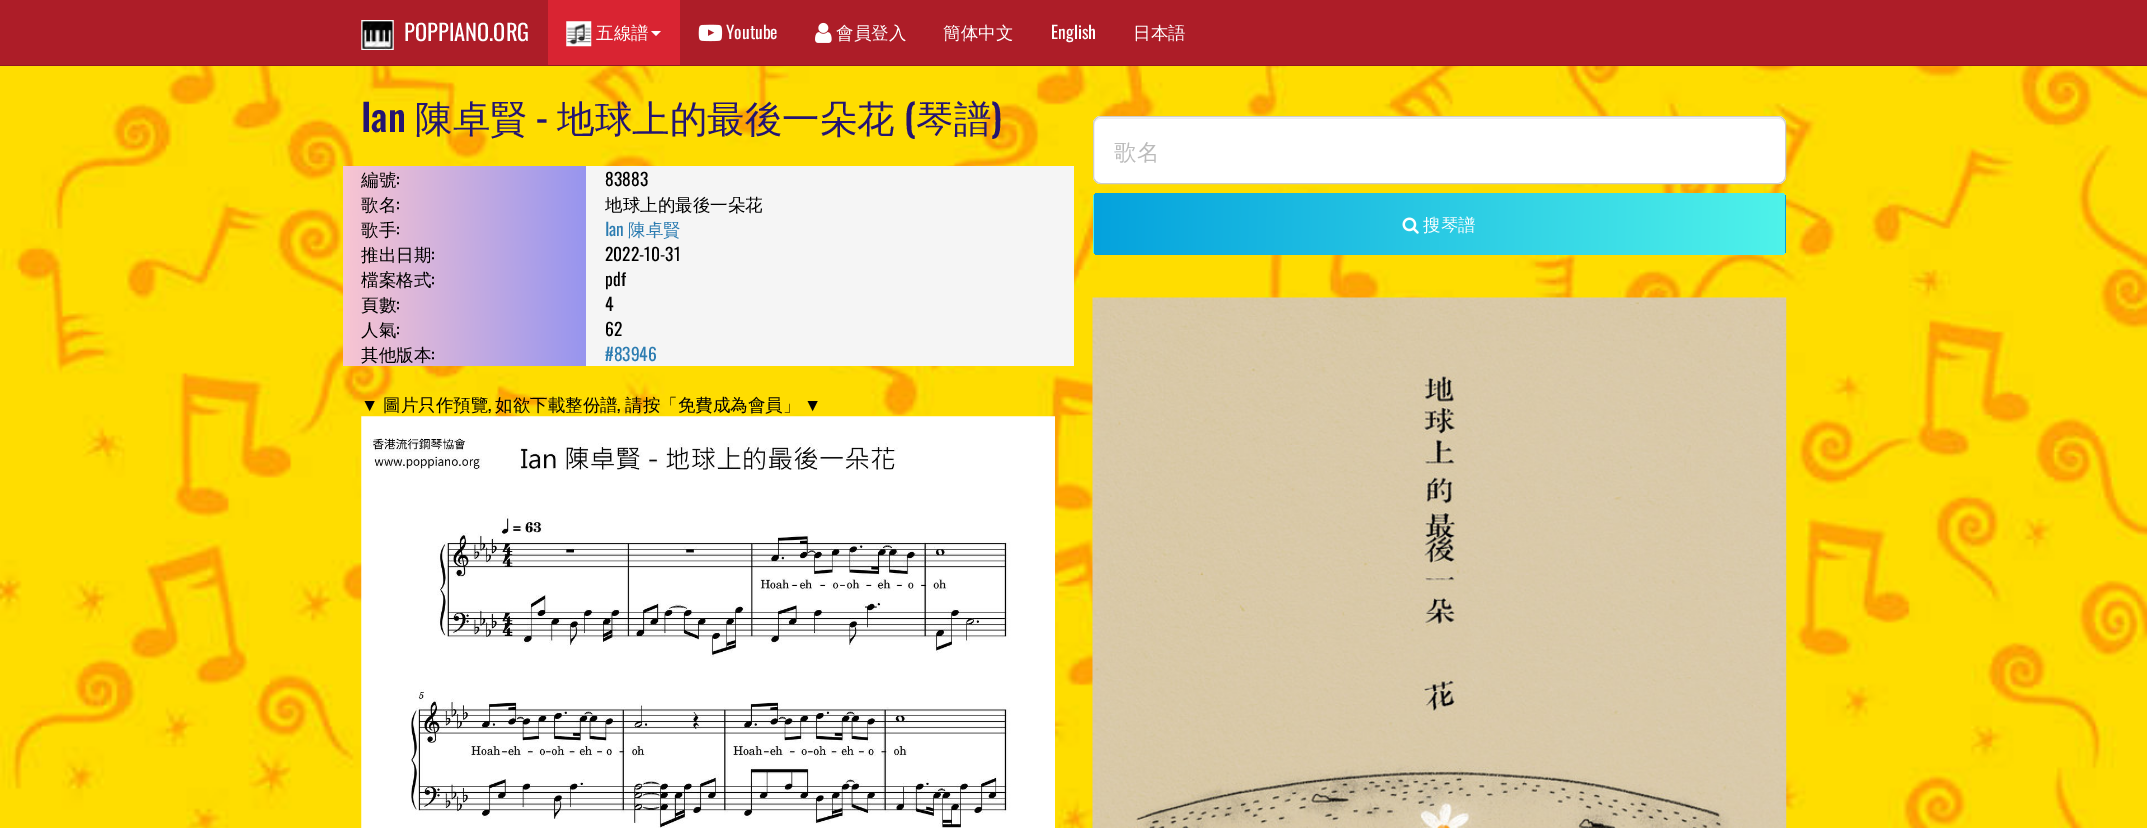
%!PS
<< /PageSize [2147 828] >> setpagedevice
/roundrect { 5 dict begin { /r /h /w /y /x } { exch def } forall
  x r add y moveto x w add y 2 copy h add r arct x w add y h add x 1 index r arct
  x y h add x y r arct x y 2 copy exch w add exch r arct closepath end } def
/picture { 5 dict begin { /h /w /y /x /name } { exch def } forall
  gsave x y translate w h scale
  w h 8 [w 0 0 h 0 0] name (r) file false 3 colorimage grestore end } def
0 828 translate 1 -1 scale
4 setmiterlimit
1 setgray
0 0 2147 828 rectfill
(img1.rgb) 0 66 2147 762 picture
0.678 0.114 0.157 setrgbcolor
0 0 2147 65 rectfill
0.569 0.094 0.129 setrgbcolor
0 65 2147 1 rectfill
(img2.rgb) 361 20 33 30 picture
/Oswald-Regular [22.5 0 0 -22.5 0 0] selectfont
1 setgray
404 41 moveto (POPPIANO.ORG) show
0.851 0.141 0.196 setrgbcolor
548 0 132 65 rectfill
(img3.rgb) 566 21 26 26 picture
/WenQuanYiZenHei-Medium [17.5 0 0 -17.5 0 0] selectfont
1 setgray
596 39 moveto (五線譜) show
newpath 651 31 moveto 661 31 lineto 656 36 lineto closepath fill
(img4.rgb) 698 24 25 18 picture
/Oswald-Regular [17.5 0 0 -17.5 0 0] selectfont
726 39 moveto (Youtube) show
(img5.rgb) 815 22 17 21 picture
/WenQuanYiZenHei-Medium [17.5 0 0 -17.5 0 0] selectfont
836 39 moveto (會員登入) show
943 39 moveto (簡体中文) show
/Oswald-Regular [17.5 0 0 -17.5 0 0] selectfont
1051 39 moveto (English) show
/WenQuanYiZenHei-Medium [17.5 0 0 -17.5 0 0] selectfont
1133 39 moveto (日本語) show
/Oswald-Medium [37.5 0 0 -37.5 0 0] selectfont
0.141 0.082 0.443 setrgbcolor
361 132 moveto (Ian) show
/WenQuanYiZenHei-Medium [37.5 0 0 -37.5 0 0] selectfont
415 132 moveto (陳卓賢) show
/Oswald-Medium [37.5 0 0 -37.5 0 0] selectfont
536 132 moveto (-) show
/WenQuanYiZenHei-Medium [37.5 0 0 -37.5 0 0] selectfont
557 132 moveto (地球上的最後一朵花) show
/Oswald-Medium [37.5 0 0 -37.5 0 0] selectfont
904 132 moveto (\() show
/WenQuanYiZenHei-Medium [37.5 0 0 -37.5 0 0] selectfont
916 132 moveto (琴譜) show
/Oswald-Medium [37.5 0 0 -37.5 0 0] selectfont
991 132 moveto (\)) show
gsave newpath 343 166 moveto 586 166 lineto 586 191 lineto 343 191 lineto closepath clip newpath
<< /ShadingType 2 /ColorSpace /DeviceRGB /Coords [342 175 587 183] /Extend [true true] /Function << /FunctionType 2 /Domain [0 1] /C0 [0.976 0.773 0.82] /C1 [0.592 0.584 0.937] /N 1 >> >> shfill grestore
/WenQuanYiZenHei-Medium [17.5 0 0 -17.5 0 0] selectfont
0 setgray
361 186 moveto (編號) show
/Oswald-Regular [17.5 0 0 -17.5 0 0] selectfont
396 186 moveto (:) show
0.961 setgray
586 166 488 200 rectfill
0 setgray
605 186 moveto (83883) show
gsave newpath 343 191 moveto 586 191 lineto 586 216 lineto 343 216 lineto closepath clip newpath
<< /ShadingType 2 /ColorSpace /DeviceRGB /Coords [342 200 587 208] /Extend [true true] /Function << /FunctionType 2 /Domain [0 1] /C0 [0.976 0.773 0.82] /C1 [0.592 0.584 0.937] /N 1 >> >> shfill grestore
/WenQuanYiZenHei-Medium [17.5 0 0 -17.5 0 0] selectfont
361 211 moveto (歌名) show
/Oswald-Regular [17.5 0 0 -17.5 0 0] selectfont
396 211 moveto (:) show
/WenQuanYiZenHei-Medium [17.5 0 0 -17.5 0 0] selectfont
605 211 moveto (地球上的最後一朵花) show
gsave newpath 343 216 moveto 586 216 lineto 586 241 lineto 343 241 lineto closepath clip newpath
<< /ShadingType 2 /ColorSpace /DeviceRGB /Coords [342 225 587 233] /Extend [true true] /Function << /FunctionType 2 /Domain [0 1] /C0 [0.976 0.773 0.82] /C1 [0.592 0.584 0.937] /N 1 >> >> shfill grestore
361 236 moveto (歌手) show
/Oswald-Regular [17.5 0 0 -17.5 0 0] selectfont
396 236 moveto (:) show
0.173 0.486 0.694 setrgbcolor
605 236 moveto (Ian) show
/WenQuanYiZenHei-Medium [17.5 0 0 -17.5 0 0] selectfont
628 236 moveto (陳卓賢) show
gsave newpath 343 241 moveto 586 241 lineto 586 266 lineto 343 266 lineto closepath clip newpath
<< /ShadingType 2 /ColorSpace /DeviceRGB /Coords [342 250 587 258] /Extend [true true] /Function << /FunctionType 2 /Domain [0 1] /C0 [0.976 0.773 0.82] /C1 [0.592 0.584 0.937] /N 1 >> >> shfill grestore
0 setgray
361 261 moveto (推出日期) show
/Oswald-Regular [17.5 0 0 -17.5 0 0] selectfont
431 261 moveto (:) show
605 261 moveto (2022-10-31) show
gsave newpath 343 266 moveto 586 266 lineto 586 291 lineto 343 291 lineto closepath clip newpath
<< /ShadingType 2 /ColorSpace /DeviceRGB /Coords [342 275 587 283] /Extend [true true] /Function << /FunctionType 2 /Domain [0 1] /C0 [0.976 0.773 0.82] /C1 [0.592 0.584 0.937] /N 1 >> >> shfill grestore
/WenQuanYiZenHei-Medium [17.5 0 0 -17.5 0 0] selectfont
361 286 moveto (檔案格式) show
/Oswald-Regular [17.5 0 0 -17.5 0 0] selectfont
431 286 moveto (:) show
605 286 moveto (pdf) show
gsave newpath 343 291 moveto 586 291 lineto 586 316 lineto 343 316 lineto closepath clip newpath
<< /ShadingType 2 /ColorSpace /DeviceRGB /Coords [342 300 587 308] /Extend [true true] /Function << /FunctionType 2 /Domain [0 1] /C0 [0.976 0.773 0.82] /C1 [0.592 0.584 0.937] /N 1 >> >> shfill grestore
/WenQuanYiZenHei-Medium [17.5 0 0 -17.5 0 0] selectfont
361 311 moveto (頁數) show
/Oswald-Regular [17.5 0 0 -17.5 0 0] selectfont
396 311 moveto (:) show
605 311 moveto (4) show
gsave newpath 343 316 moveto 586 316 lineto 586 341 lineto 343 341 lineto closepath clip newpath
<< /ShadingType 2 /ColorSpace /DeviceRGB /Coords [342 325 587 333] /Extend [true true] /Function << /FunctionType 2 /Domain [0 1] /C0 [0.976 0.773 0.82] /C1 [0.592 0.584 0.937] /N 1 >> >> shfill grestore
/WenQuanYiZenHei-Medium [17.5 0 0 -17.5 0 0] selectfont
361 336 moveto (人氣) show
/Oswald-Regular [17.5 0 0 -17.5 0 0] selectfont
396 336 moveto (:) show
605 336 moveto (62) show
gsave newpath 343 341 moveto 586 341 lineto 586 366 lineto 343 366 lineto closepath clip newpath
<< /ShadingType 2 /ColorSpace /DeviceRGB /Coords [342 350 587 358] /Extend [true true] /Function << /FunctionType 2 /Domain [0 1] /C0 [0.976 0.773 0.82] /C1 [0.592 0.584 0.937] /N 1 >> >> shfill grestore
/WenQuanYiZenHei-Medium [17.5 0 0 -17.5 0 0] selectfont
361 361 moveto (其他版本) show
/Oswald-Regular [17.5 0 0 -17.5 0 0] selectfont
431 361 moveto (:) show
0.173 0.486 0.694 setrgbcolor
605 361 moveto (#83946) show
/LiberationSans-Regular [17.5 0 0 -17.5 0 0] selectfont
0 setgray
361 411 moveto (▼) show
/WenQuanYiZenHei-Medium [17.5 0 0 -17.5 0 0] selectfont
383 411 moveto (圖片只作預覽) show
/Oswald-Regular [17.5 0 0 -17.5 0 0] selectfont
488 411 moveto (,) show
/WenQuanYiZenHei-Medium [17.5 0 0 -17.5 0 0] selectfont
495 411 moveto (如欲下載整份譜) show
/Oswald-Regular [17.5 0 0 -17.5 0 0] selectfont
617 411 moveto (,) show
/WenQuanYiZenHei-Medium [17.5 0 0 -17.5 0 0] selectfont
625 411 moveto (請按「免費成為會員」) show
/LiberationSans-Regular [17.5 0 0 -17.5 0 0] selectfont
804 411 moveto (▼) show
(img6.rgb) 361 416 694 412 picture
1 setgray
1093 116 693 68 8 roundrect fill
0.925 setgray
newpath 1100 119 moveto 1779 119 lineto 1782 119 1785 122 1785 125 curveto 1785 124 lineto 1785 121 1782 118 1779 118 curveto 1100 118 lineto 1097 118 1094 121 1094 124 curveto 1094 125 lineto 1094 122 1097 119 1100 119 curveto closepath fill
0.8 setgray
1093.5 116.5 692 67 7.5 roundrect stroke
/WenQuanYiZenHei-Medium [22.5 0 0 -22.5 0 0] selectfont
0.733 setgray
1114 160 moveto (歌名) show
gsave
1093 193 693 62 5 roundrect clip newpath
gsave newpath 1094 193 moveto 1785 193 lineto 1785 194 lineto 1094 194 lineto closepath clip newpath
<< /ShadingType 2 /ColorSpace /DeviceRGB /Coords [1093 153 1786 175] /Extend [true true] /Function << /FunctionType 2 /Domain [0 1] /C0 [0.016 0.635 0.867] /C1 [0.31 0.953 0.918] /N 1 >> >> shfill grestore
gsave newpath 1093 194 moveto 1094 194 lineto 1094 254 lineto 1093 254 lineto closepath clip newpath
<< /ShadingType 2 /ColorSpace /DeviceRGB /Coords [402 213 1094 235] /Extend [true true] /Function << /FunctionType 2 /Domain [0 1] /C0 [0.016 0.635 0.867] /C1 [0.31 0.953 0.918] /N 1 >> >> shfill grestore
gsave newpath 1094 194 moveto 1785 194 lineto 1785 254 lineto 1094 254 lineto closepath clip newpath
<< /ShadingType 2 /ColorSpace /DeviceRGB /Coords [1093 213 1786 235] /Extend [true true] /Function << /FunctionType 2 /Domain [0 1] /C0 [0.016 0.635 0.867] /C1 [0.31 0.953 0.918] /N 1 >> >> shfill grestore
gsave newpath 1785 194 moveto 1786 194 lineto 1786 254 lineto 1785 254 lineto closepath clip newpath
<< /ShadingType 2 /ColorSpace /DeviceRGB /Coords [1784 213 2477 235] /Extend [true true] /Function << /FunctionType 2 /Domain [0 1] /C0 [0.016 0.635 0.867] /C1 [0.31 0.953 0.918] /N 1 >> >> shfill grestore
gsave newpath 1094 254 moveto 1785 254 lineto 1785 255 lineto 1094 255 lineto closepath clip newpath
<< /ShadingType 2 /ColorSpace /DeviceRGB /Coords [1093 273 1786 295] /Extend [true true] /Function << /FunctionType 2 /Domain [0 1] /C0 [0.016 0.635 0.867] /C1 [0.31 0.953 0.918] /N 1 >> >> shfill grestore
grestore
(img7.rgb) 1402 217 17 17 picture
/WenQuanYiZenHei-Medium [17.5 0 0 -17.5 0 0] selectfont
1 setgray
1423 231 moveto (搜琴譜) show
(img8.rgb) 1092 297 695 531 picture
showpage
